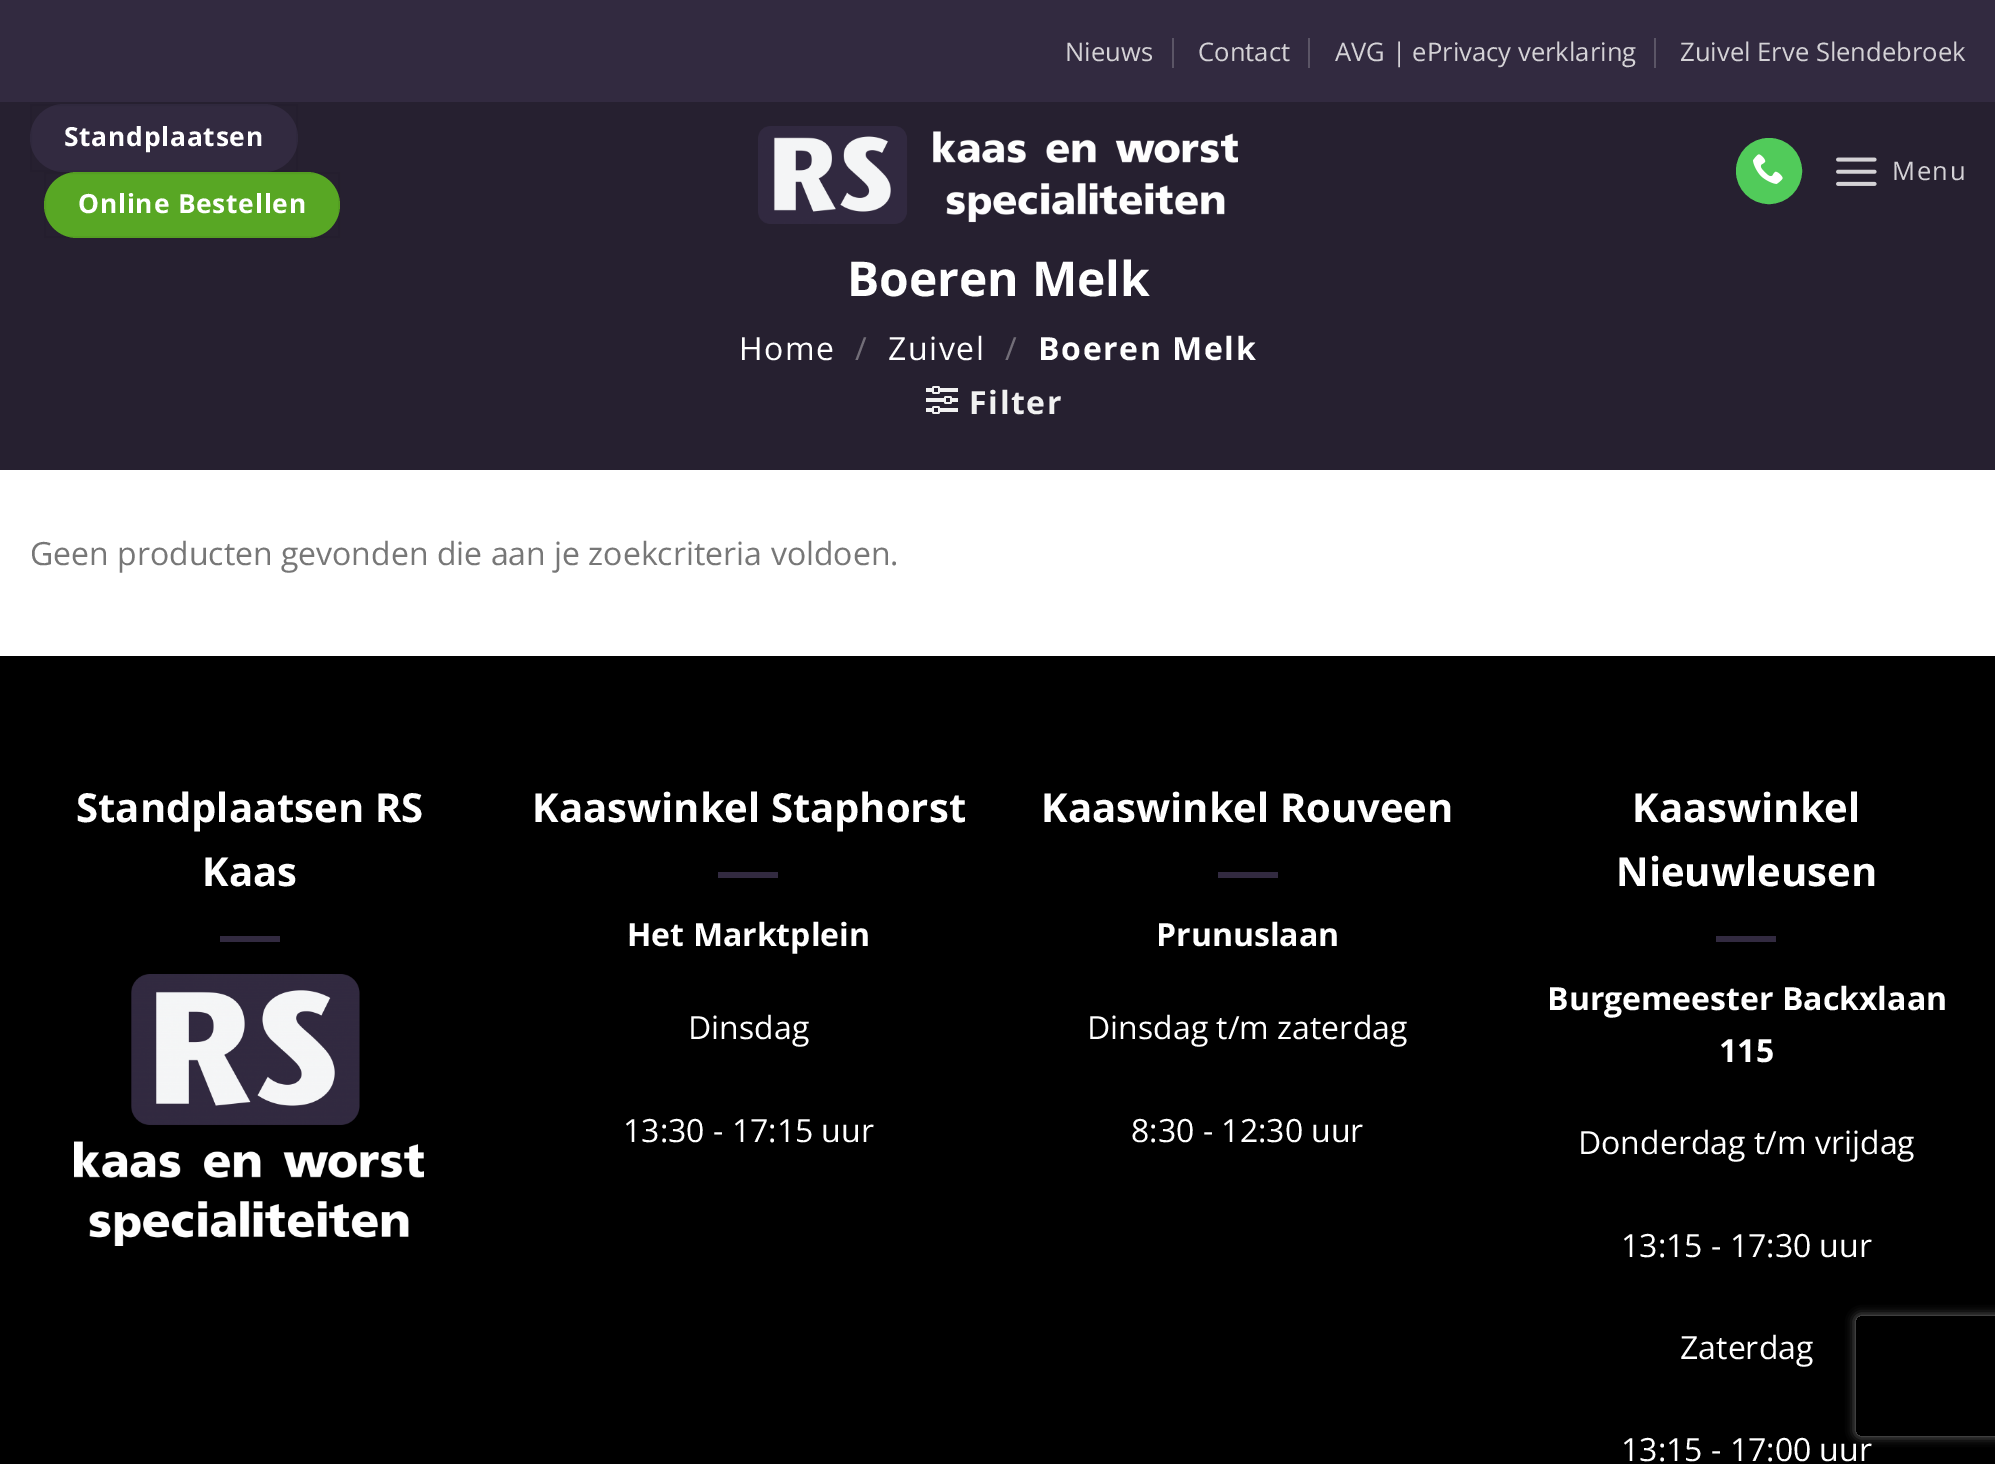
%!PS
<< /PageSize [1995 1464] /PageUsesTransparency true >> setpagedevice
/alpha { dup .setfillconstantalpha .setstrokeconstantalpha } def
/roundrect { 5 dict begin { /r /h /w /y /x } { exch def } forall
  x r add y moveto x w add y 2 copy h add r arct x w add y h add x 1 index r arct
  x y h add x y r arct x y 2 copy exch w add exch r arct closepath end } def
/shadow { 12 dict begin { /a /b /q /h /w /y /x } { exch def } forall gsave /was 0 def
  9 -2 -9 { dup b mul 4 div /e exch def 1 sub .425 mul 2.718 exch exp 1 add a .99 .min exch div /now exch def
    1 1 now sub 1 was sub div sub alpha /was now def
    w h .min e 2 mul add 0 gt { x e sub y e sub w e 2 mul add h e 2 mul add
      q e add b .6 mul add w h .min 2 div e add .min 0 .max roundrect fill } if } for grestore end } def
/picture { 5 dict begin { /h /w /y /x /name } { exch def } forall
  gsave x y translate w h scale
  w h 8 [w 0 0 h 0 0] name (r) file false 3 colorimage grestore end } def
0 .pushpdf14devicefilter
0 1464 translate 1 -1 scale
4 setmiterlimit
1 setgray
0 0 1995 1464 rectfill
0.196 0.165 0.251 setrgbcolor
0 0 1995 102 rectfill
/OpenSans-Regular [25.6 0 0 -25.6 0 0] selectfont
0.831 0.824 0.839 setrgbcolor
1065 61 moveto (Nieuws) show
0.357 0.333 0.4 setrgbcolor
1172 38 2 30 rectfill
0.831 0.824 0.839 setrgbcolor
1198 61 moveto (Contact) show
0.357 0.333 0.4 setrgbcolor
1308 38 2 30 rectfill
0.831 0.824 0.839 setrgbcolor
1335 61 moveto (AVG | ePrivacy verklaring) show
0.357 0.333 0.4 setrgbcolor
1654 38 2 30 rectfill
0.831 0.824 0.839 setrgbcolor
1680 61 moveto (Zuivel Erve Slendebroek) show
0.149 0.125 0.188 setrgbcolor
0 102 1995 368 rectfill
0.196 0.165 0.251 setrgbcolor
30 104 268 68 34 roundrect fill
0.05 alpha
0 setgray
2 setlinewidth
31 105 266 66 rectstroke
/OpenSans-Bold [26.4 0 0 -26.4 0 0] selectfont
1 alpha
1 setgray
64 146 moveto 0.75 0 (Standplaatsen) ashow
0.345 0.655 0.141 setrgbcolor
44 172 296 66 33 roundrect fill
0.05 alpha
0 setgray
45 173 294 64 rectstroke
1 alpha
1 setgray
78 213 moveto 0.75 0 (Online Bestellen) ashow
(img1.rgb) 758 126 480 98 picture
0.318 0.796 0.353 setrgbcolor
newpath 1769 171 32 0 360 arc closepath gsave fill grestore
stroke
(img2.rgb) 1753 154 30 30 picture
(img3.rgb) 1836 157 41 29 picture
/OpenSans-Regular [25.6 0 0 -25.6 0 0] selectfont
0.831 0.824 0.839 setrgbcolor
1892 180 moveto 1.5 0 (Menu) ashow
/OpenSans-Bold [48 0 0 -48 0 0] selectfont
1 setgray
847 296 moveto (Boeren Melk) show
/OpenSans-Regular [32 0 0 -32 0 0] selectfont
739 360 moveto 1.6 0 (Home) ashow
0.447 0.431 0.471 setrgbcolor
855 360 moveto 1.6 0 (/) ashow
1 setgray
888 360 moveto 1.6 0 (Zuivel) ashow
0.447 0.431 0.471 setrgbcolor
1005 360 moveto 1.6 0 (/) ashow
/OpenSans-Bold [32 0 0 -32 0 0] selectfont
1 setgray
1038 360 moveto 1.6 0 (Boeren Melk) ashow
(img4.rgb) 926 386 32 28 picture
0.945 setgray
969 414 moveto 1.6 0 (Filter) ashow
/OpenSans-Regular [32 0 0 -32 0 0] selectfont
0.467 setgray
30 565 moveto (Geen producten gevonden die aan je zoekcriteria voldoen.) show
0 setgray
0 656 1995 808 rectfill
/OpenSans-Bold [40 0 0 -40 0 0] selectfont
1 setgray
76 822 moveto (Standplaatsen RS) show
202 886 moveto (Kaas) show
0.196 0.165 0.251 setrgbcolor
220 936 60 6 rectfill
(img5.rgb) 74 974 350 272 picture
1 setgray
532 822 moveto (Kaaswinkel Staphorst) show
0.196 0.165 0.251 setrgbcolor
718 872 60 6 rectfill
/OpenSans-Bold [32 0 0 -32 0 0] selectfont
1 setgray
627 946 moveto (Het Marktplein) show
/OpenSans-Regular [32 0 0 -32 0 0] selectfont
688 1039 moveto (Dinsdag) show
623 1142 moveto (13:30 - 17:15 uur) show
/OpenSans-Bold [40 0 0 -40 0 0] selectfont
1041 822 moveto (Kaaswinkel Rouveen) show
0.196 0.165 0.251 setrgbcolor
1218 872 60 6 rectfill
/OpenSans-Bold [32 0 0 -32 0 0] selectfont
1 setgray
1156 946 moveto (Prunuslaan) show
/OpenSans-Regular [32 0 0 -32 0 0] selectfont
1087 1039 moveto (Dinsdag t/m zaterdag) show
1131 1142 moveto (8:30 - 12:30 uur) show
/OpenSans-Bold [40 0 0 -40 0 0] selectfont
1632 822 moveto (Kaaswinkel) show
1616 886 moveto (Nieuwleusen) show
0.196 0.165 0.251 setrgbcolor
1716 936 60 6 rectfill
/OpenSans-Bold [32 0 0 -32 0 0] selectfont
1 setgray
1547 1010 moveto (Burgemeester Backxlaan) show
1719 1062 moveto (115) show
/OpenSans-Regular [32 0 0 -32 0 0] selectfont
1578 1154 moveto (Donderdag t/m vrijdag) show
1621 1257 moveto (13:15 - 17:30 uur) show
1680 1359 moveto (Zaterdag) show
gsave
newpath 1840 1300 moveto 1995 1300 lineto 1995 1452 lineto 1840 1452 lineto closepath 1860 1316 moveto 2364 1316 lineto 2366 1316 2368 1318 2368 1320 curveto 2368 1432 lineto 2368 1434 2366 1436 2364 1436 curveto 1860 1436 lineto 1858 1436 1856 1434 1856 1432 curveto 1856 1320 lineto 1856 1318 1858 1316 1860 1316 curveto closepath eoclip newpath
0.502 setgray
1856 1316 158 120 4 5 1 shadow
grestore
1621 1461 moveto (13:15 - 17:00 uur) show
.poppdf14devicefilter showpage
